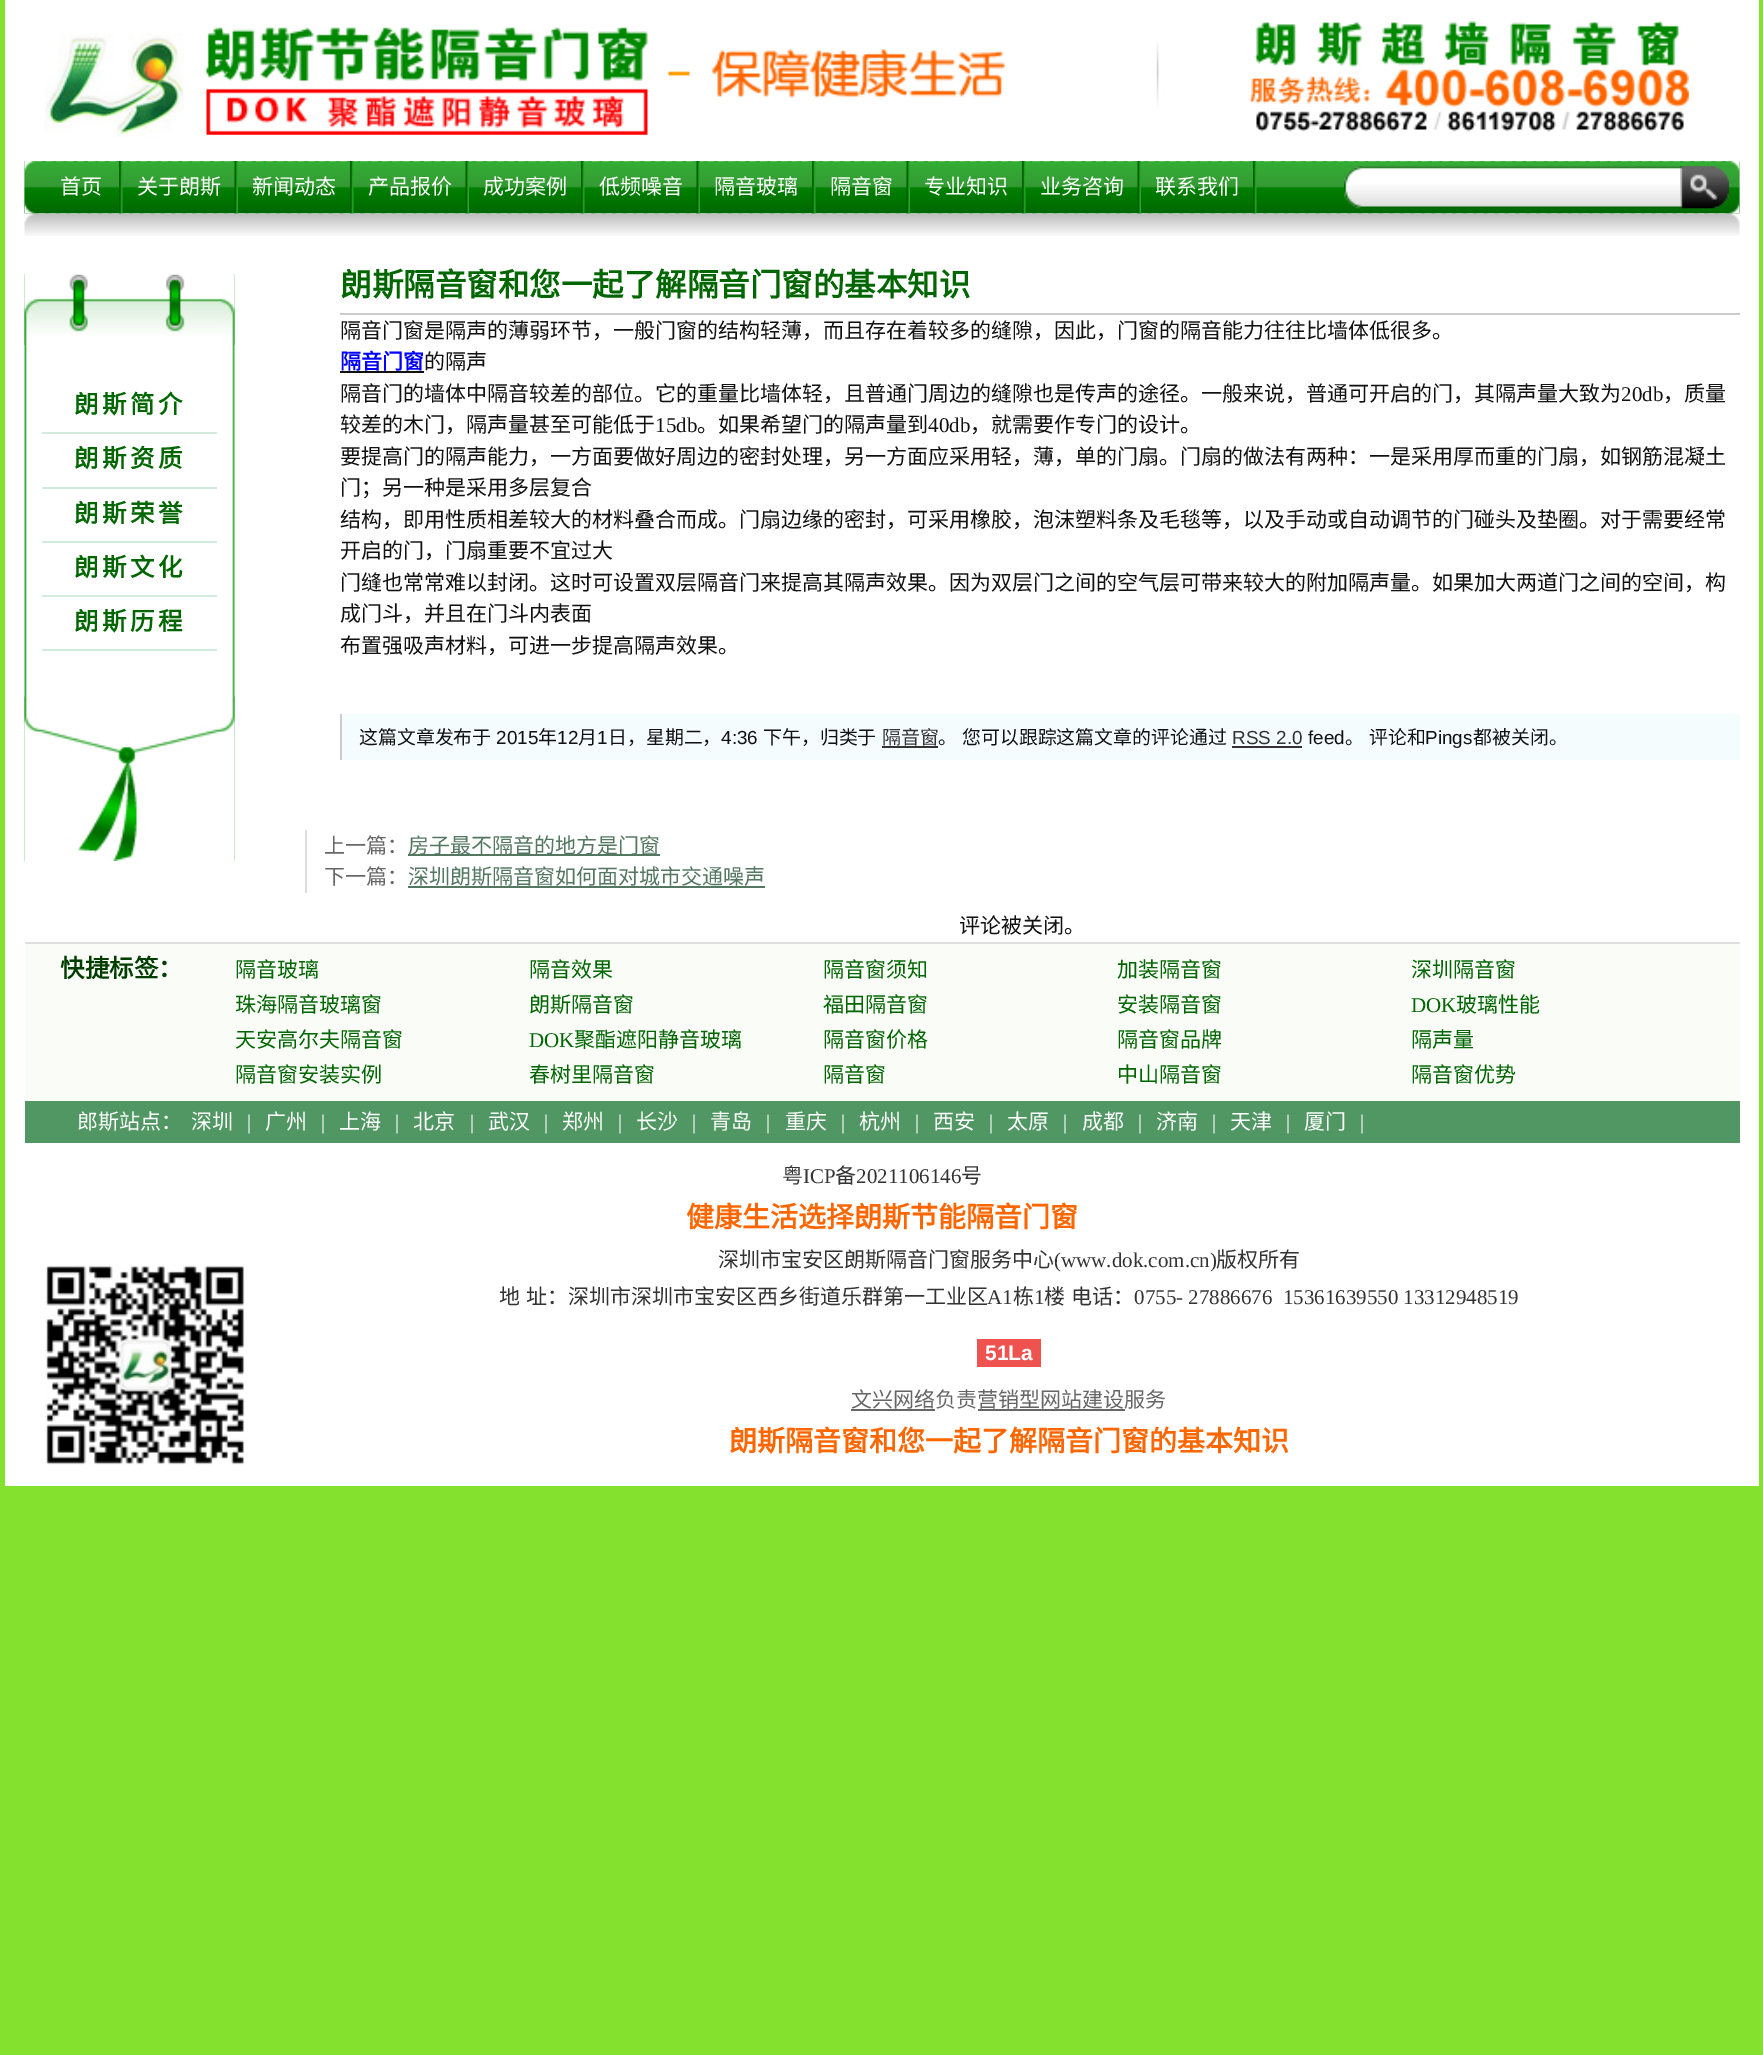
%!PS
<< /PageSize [1763 2055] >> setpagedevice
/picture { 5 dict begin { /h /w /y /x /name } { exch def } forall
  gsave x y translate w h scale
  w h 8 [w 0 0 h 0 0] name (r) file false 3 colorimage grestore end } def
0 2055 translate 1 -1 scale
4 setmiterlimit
0.518 0.886 0.18 setrgbcolor
0 0 1763 2055 rectfill
1 setgray
5 0 1754 1486 rectfill
(img1.rgb) 1156 21 533 111 picture
(img2.rgb) 44 33 140 105 picture
(img3.rgb) 206 26 442 109 picture
(img4.rgb) 668 49 337 49 picture
(img13.rgb) 24 213 1716 23 picture
(img5.rgb) 24 161 1716 53 picture
(img6.rgb) 24 161 11 53 picture
(img7.rgb) 119 161 4 53 picture
/NotoSansCJKSC-Regular [21 0 0 -21 0 0] selectfont
60 194 moveto (首页) show
(img8.rgb) 234 161 4 53 picture
137 194 moveto (关于朗斯) show
(img7.rgb) 350 161 4 53 picture
252 194 moveto (新闻动态) show
(img8.rgb) 465 161 4 53 picture
368 194 moveto (产品报价) show
(img7.rgb) 581 161 4 53 picture
483 194 moveto (成功案例) show
(img8.rgb) 696 161 4 53 picture
599 194 moveto (低频噪音) show
(img7.rgb) 812 161 4 53 picture
714 194 moveto (隔音玻璃) show
(img8.rgb) 906 161 4 53 picture
830 194 moveto (隔音窗) show
(img7.rgb) 1022 161 4 53 picture
924 194 moveto (专业知识) show
(img8.rgb) 1137 161 4 53 picture
1040 194 moveto (业务咨询) show
(img7.rgb) 1253 161 4 53 picture
1155 194 moveto (联系我们) show
(img9.rgb) 1344 166 385 42 picture
(img10.rgb) 1344 166 18 43 picture
(img11.rgb) 1680 166 49 43 picture
(img12.rgb) 1729 161 11 53 picture
(img14.rgb) 24 274 211 587 picture
(img15.rgb) 24 274 211 71 picture
(img16.rgb) 24 696 211 165 picture
0.824 0.925 0.859 setrgbcolor
42 432 175 2 rectfill
/NotoSansCJKSC-Bold [24.5 0 0 -24.5 0 0] selectfont
0 0.4 0 setrgbcolor
74 413 moveto 3.5 0 (朗斯简介) ashow
0.824 0.925 0.859 setrgbcolor
42 487 175 2 rectfill
0 0.4 0 setrgbcolor
74 467 moveto 3.5 0 (朗斯资质) ashow
0.824 0.925 0.859 setrgbcolor
42 541 175 2 rectfill
0 0.4 0 setrgbcolor
74 522 moveto 3.5 0 (朗斯荣誉) ashow
0.824 0.925 0.859 setrgbcolor
42 595 175 2 rectfill
0 0.4 0 setrgbcolor
74 576 moveto 3.5 0 (朗斯文化) ashow
0.824 0.925 0.859 setrgbcolor
42 649 175 2 rectfill
0 0.4 0 setrgbcolor
74 630 moveto 3.5 0 (朗斯历程) ashow
0.8 setgray
340 313 1400 2 rectfill
/NotoSansCJKSC-Bold [31.5 0 0 -31.5 0 0] selectfont
0 0.4 0 setrgbcolor
340 296 moveto (朗斯隔音窗和您一起了解隔音门窗的基本知识) show
/NotoSansCJKSC-Regular [21 0 0 -21 0 0] selectfont
0.067 setgray
340 338 moveto (隔音门窗是隔声的薄弱环节，一般门窗的结构轻薄，而且存在着较多的缝隙，因此，门窗的隔音能力往往比墙体低很多。) show
/NotoSansCJKSC-Bold [21 0 0 -21 0 0] selectfont
0 0 1 setrgbcolor
340 369 moveto (隔音门窗) show
0.067 setgray
340 371 84 2 rectfill
/NotoSansCJKSC-Regular [21 0 0 -21 0 0] selectfont
424 369 moveto (的隔声) show
340 401 moveto (隔音门的墙体中隔音较差的部位。它的重量比墙体轻，且普通门周边的缝隙也是传声的途径。一般来说，普通可开启的门，其隔声量大致为) show
/LiberationSerif-Regular [21 0 0 -21 0 0] selectfont
1621 401 moveto (20db) show
/NotoSansCJKSC-Regular [21 0 0 -21 0 0] selectfont
1663 401 moveto (，质量) show
340 432 moveto (较差的木门，隔声量甚至可能低于) show
/LiberationSerif-Regular [21 0 0 -21 0 0] selectfont
655 432 moveto (15db) show
/NotoSansCJKSC-Regular [21 0 0 -21 0 0] selectfont
697 432 moveto (。如果希望门的隔声量到) show
/LiberationSerif-Regular [21 0 0 -21 0 0] selectfont
928 432 moveto (40db) show
/NotoSansCJKSC-Regular [21 0 0 -21 0 0] selectfont
970 432 moveto (，就需要作专门的设计。) show
340 464 moveto (要提高门的隔声能力，一方面要做好周边的密封处理，另一方面应采用轻，薄，单的门扇。门扇的做法有两种：一是采用厚而重的门扇，如钢筋混凝土) show
340 495 moveto (门；另一种是采用多层复合) show
340 527 moveto (结构，即用性质相差较大的材料叠合而成。门扇边缘的密封，可采用橡胶，泡沫塑料条及毛毯等，以及手动或自动调节的门碰头及垫圈。对于需要经常) show
340 558 moveto (开启的门，门扇重要不宜过大) show
340 590 moveto (门缝也常常难以封闭。这时可设置双层隔音门来提高其隔声效果。因为双层门之间的空气层可带来较大的附加隔声量。如果加大两道门之间的空间，构) show
340 621 moveto (成门斗，并且在门斗内表面) show
340 653 moveto (布置强吸声材料，可进一步提高隔声效果。) show
0.961 0.988 0.996 setrgbcolor
342 714 1398 46 rectfill
0.8 setgray
340 714 2 46 rectfill
/NotoSansCJKSC-Regular [18.9 0 0 -18.9 0 0] selectfont
0.067 setgray
359 744 moveto (这篇文章发布于) show
/LiberationSans-Regular [18.9 0 0 -18.9 0 0] selectfont
496 744 moveto (2015) show
/NotoSansCJKSC-Regular [18.9 0 0 -18.9 0 0] selectfont
538 744 moveto (年) show
/LiberationSans-Regular [18.9 0 0 -18.9 0 0] selectfont
557 744 moveto (12) show
/NotoSansCJKSC-Regular [18.9 0 0 -18.9 0 0] selectfont
578 744 moveto (月) show
/LiberationSans-Regular [18.9 0 0 -18.9 0 0] selectfont
597 744 moveto (1) show
/NotoSansCJKSC-Regular [18.9 0 0 -18.9 0 0] selectfont
608 744 moveto (日，星期二，) show
/LiberationSans-Regular [18.9 0 0 -18.9 0 0] selectfont
721 744 moveto (4:36) show
/NotoSansCJKSC-Regular [18.9 0 0 -18.9 0 0] selectfont
763 744 moveto (下午，归类于) show
0.2 setgray
882 744 moveto (隔音窗) show
0.067 setgray
938 744 moveto (。) show
0.2 setgray
882 746 56 2 rectfill
0.067 setgray
962 744 moveto (您可以跟踪这篇文章的评论通过) show
/LiberationSans-Regular [18.9 0 0 -18.9 0 0] selectfont
0.2 setgray
1232 744 moveto (RSS 2.0) show
1232 746 70 2 rectfill
0.067 setgray
1308 744 moveto (feed) show
/NotoSansCJKSC-Regular [18.9 0 0 -18.9 0 0] selectfont
1345 744 moveto (。) show
1369 744 moveto (评论和) show
/LiberationSans-Regular [18.9 0 0 -18.9 0 0] selectfont
1425 744 moveto (Pings) show
/NotoSansCJKSC-Regular [18.9 0 0 -18.9 0 0] selectfont
1473 744 moveto (都被关闭。) show
0.867 setgray
305 830 2 63 rectfill
/NotoSansCJKSC-Regular [21 0 0 -21 0 0] selectfont
0.4 setgray
324 853 moveto (上一篇：) show
0.325 0.467 0.376 setrgbcolor
408 854 252 2 rectfill
408 853 moveto (房子最不隔音的地方是门窗) show
0.4 setgray
324 884 moveto (下一篇：) show
0.325 0.467 0.376 setrgbcolor
408 884 moveto (深圳朗斯隔音窗如何面对城市交通噪声) show
408 886 357 2 rectfill
0.067 setgray
959 933 moveto (评论被关闭。) show
0.98 0.988 0.973 setrgbcolor
25 944 1715 157 rectfill
0.875 setgray
25 942 1715 2 rectfill
/NotoSansCJKSC-Bold [24.5 0 0 -24.5 0 0] selectfont
0 0.243 0 setrgbcolor
60 977 moveto (快捷标签：) show
/NotoSansCJKSC-Regular [21 0 0 -21 0 0] selectfont
0 0.4 0 setrgbcolor
235 977 moveto (隔音玻璃) show
529 977 moveto (隔音效果) show
823 977 moveto (隔音窗须知) show
1117 977 moveto (加装隔音窗) show
1411 977 moveto (深圳隔音窗) show
235 1012 moveto (珠海隔音玻璃窗) show
529 1012 moveto (朗斯隔音窗) show
823 1012 moveto (福田隔音窗) show
1117 1012 moveto (安装隔音窗) show
/LiberationSerif-Regular [21 0 0 -21 0 0] selectfont
1411 1012 moveto (DOK) show
/NotoSansCJKSC-Regular [21 0 0 -21 0 0] selectfont
1456 1012 moveto (玻璃性能) show
235 1047 moveto (天安高尔夫隔音窗) show
/LiberationSerif-Regular [21 0 0 -21 0 0] selectfont
529 1047 moveto (DOK) show
/NotoSansCJKSC-Regular [21 0 0 -21 0 0] selectfont
574 1047 moveto (聚酯遮阳静音玻璃) show
823 1047 moveto (隔音窗价格) show
1117 1047 moveto (隔音窗品牌) show
1411 1047 moveto (隔声量) show
235 1082 moveto (隔音窗安装实例) show
529 1082 moveto (春树里隔音窗) show
823 1082 moveto (隔音窗) show
1117 1082 moveto (中山隔音窗) show
1411 1082 moveto (隔音窗优势) show
0.318 0.592 0.388 setrgbcolor
25 1101 1715 42 rectfill
1 setgray
77 1129 moveto (郎斯站点：) show
191 1129 moveto (深圳) show
/LiberationSerif-Regular [21 0 0 -21 0 0] selectfont
247 1129 moveto (|) show
/NotoSansCJKSC-Regular [21 0 0 -21 0 0] selectfont
265 1129 moveto (广州) show
/LiberationSerif-Regular [21 0 0 -21 0 0] selectfont
321 1129 moveto (|) show
/NotoSansCJKSC-Regular [21 0 0 -21 0 0] selectfont
339 1129 moveto (上海) show
/LiberationSerif-Regular [21 0 0 -21 0 0] selectfont
395 1129 moveto (|) show
/NotoSansCJKSC-Regular [21 0 0 -21 0 0] selectfont
413 1129 moveto (北京) show
/LiberationSerif-Regular [21 0 0 -21 0 0] selectfont
470 1129 moveto (|) show
/NotoSansCJKSC-Regular [21 0 0 -21 0 0] selectfont
488 1129 moveto (武汉) show
/LiberationSerif-Regular [21 0 0 -21 0 0] selectfont
544 1129 moveto (|) show
/NotoSansCJKSC-Regular [21 0 0 -21 0 0] selectfont
562 1129 moveto (郑州) show
/LiberationSerif-Regular [21 0 0 -21 0 0] selectfont
618 1129 moveto (|) show
/NotoSansCJKSC-Regular [21 0 0 -21 0 0] selectfont
636 1129 moveto (长沙) show
/LiberationSerif-Regular [21 0 0 -21 0 0] selectfont
692 1129 moveto (|) show
/NotoSansCJKSC-Regular [21 0 0 -21 0 0] selectfont
710 1129 moveto (青岛) show
/LiberationSerif-Regular [21 0 0 -21 0 0] selectfont
766 1129 moveto (|) show
/NotoSansCJKSC-Regular [21 0 0 -21 0 0] selectfont
785 1129 moveto (重庆) show
/LiberationSerif-Regular [21 0 0 -21 0 0] selectfont
841 1129 moveto (|) show
/NotoSansCJKSC-Regular [21 0 0 -21 0 0] selectfont
859 1129 moveto (杭州) show
/LiberationSerif-Regular [21 0 0 -21 0 0] selectfont
915 1129 moveto (|) show
/NotoSansCJKSC-Regular [21 0 0 -21 0 0] selectfont
933 1129 moveto (西安) show
/LiberationSerif-Regular [21 0 0 -21 0 0] selectfont
989 1129 moveto (|) show
/NotoSansCJKSC-Regular [21 0 0 -21 0 0] selectfont
1007 1129 moveto (太原) show
/LiberationSerif-Regular [21 0 0 -21 0 0] selectfont
1063 1129 moveto (|) show
/NotoSansCJKSC-Regular [21 0 0 -21 0 0] selectfont
1082 1129 moveto (成都) show
/LiberationSerif-Regular [21 0 0 -21 0 0] selectfont
1138 1129 moveto (|) show
/NotoSansCJKSC-Regular [21 0 0 -21 0 0] selectfont
1156 1129 moveto (济南) show
/LiberationSerif-Regular [21 0 0 -21 0 0] selectfont
1212 1129 moveto (|) show
/NotoSansCJKSC-Regular [21 0 0 -21 0 0] selectfont
1230 1129 moveto (天津) show
/LiberationSerif-Regular [21 0 0 -21 0 0] selectfont
1286 1129 moveto (|) show
/NotoSansCJKSC-Regular [21 0 0 -21 0 0] selectfont
1304 1129 moveto (厦门) show
/LiberationSerif-Regular [21 0 0 -21 0 0] selectfont
1360 1129 moveto (|) show
/NotoSansCJKSC-Regular [21 0 0 -21 0 0] selectfont
0.2 setgray
782 1183 moveto (粤) show
/LiberationSerif-Regular [21 0 0 -21 0 0] selectfont
803 1183 moveto (ICP) show
/NotoSansCJKSC-Regular [21 0 0 -21 0 0] selectfont
835 1183 moveto (备) show
/LiberationSerif-Regular [21 0 0 -21 0 0] selectfont
856 1183 moveto (2021106146) show
/NotoSansCJKSC-Regular [21 0 0 -21 0 0] selectfont
961 1183 moveto (号) show
/NotoSansCJKSC-Bold [28 0 0 -28 0 0] selectfont
1 0.4 0 setrgbcolor
686 1227 moveto (健康生活选择朗斯节能隔音门窗) show
/NotoSansCJKSC-Regular [21 0 0 -21 0 0] selectfont
0.2 setgray
718 1267 moveto (深圳市宝安区朗斯隔音门窗服务中心) show
/LiberationSerif-Regular [21 0 0 -21 0 0] selectfont
1054 1267 moveto (\(www.dok.com.cn\)) show
/NotoSansCJKSC-Regular [21 0 0 -21 0 0] selectfont
1216 1267 moveto (版权所有) show
(img17.rgb) 45 1265 200 200 picture
499 1304 moveto 1 0 32 (地 址：深圳市深圳市宝安区西乡街道乐群第一工业区) widthshow
/LiberationSerif-Regular [21 0 0 -21 0 0] selectfont
987 1304 moveto (A1) show
/NotoSansCJKSC-Regular [21 0 0 -21 0 0] selectfont
1013 1304 moveto (栋) show
/LiberationSerif-Regular [21 0 0 -21 0 0] selectfont
1034 1304 moveto (1) show
/NotoSansCJKSC-Regular [21 0 0 -21 0 0] selectfont
1044 1304 moveto (楼) show
1071 1304 moveto (电话：) show
/LiberationSerif-Regular [21 0 0 -21 0 0] selectfont
1134 1304 moveto (0755- 27886676  15361639550 13312948519) show
0.937 0.325 0.314 setrgbcolor
977 1339 64 28 rectfill
/LiberationSans-Bold [21 0 0 -21 0 0] selectfont
1 setgray
985 1360 moveto (51La) show
/NotoSansCJKSC-Regular [21 0 0 -21 0 0] selectfont
0.4 setgray
851 1407 moveto (文兴网络负责营销型网站建设服务) show
851 1409 84 2 rectfill
978 1409 147 2 rectfill
/NotoSansCJKSC-Bold [28 0 0 -28 0 0] selectfont
1 0.4 0 setrgbcolor
729 1451 moveto (朗斯隔音窗和您一起了解隔音门窗的基本知识) show
showpage
